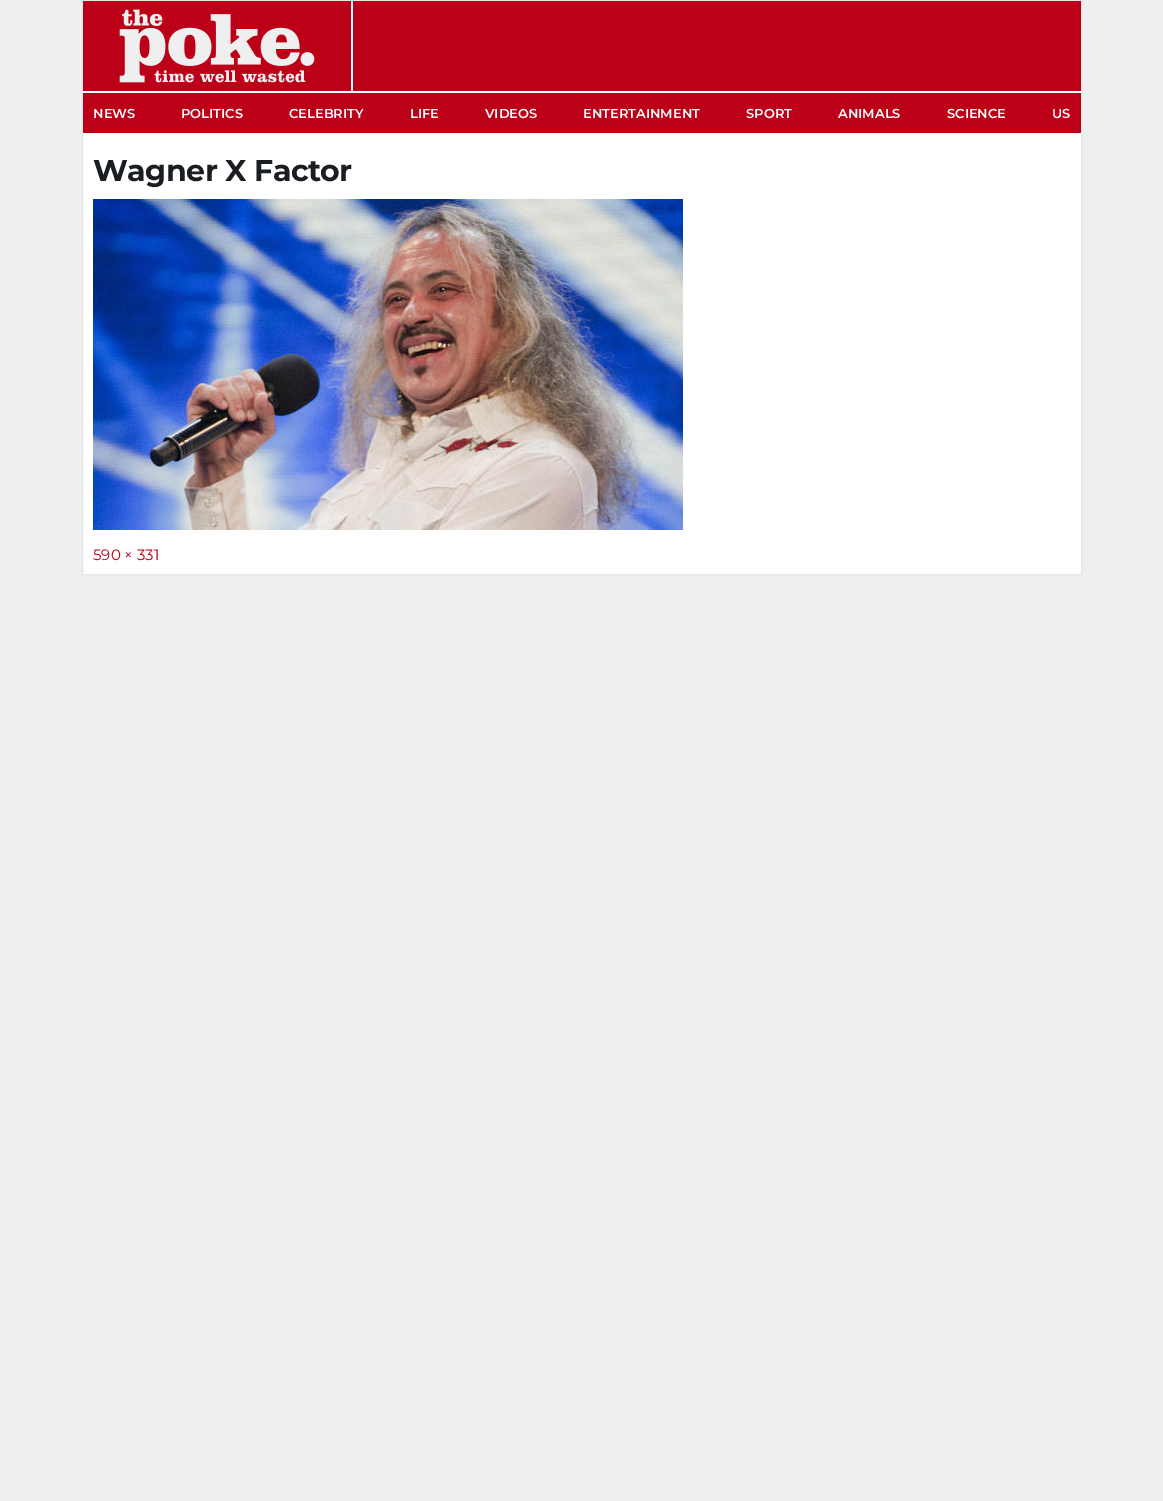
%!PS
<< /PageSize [1163 1501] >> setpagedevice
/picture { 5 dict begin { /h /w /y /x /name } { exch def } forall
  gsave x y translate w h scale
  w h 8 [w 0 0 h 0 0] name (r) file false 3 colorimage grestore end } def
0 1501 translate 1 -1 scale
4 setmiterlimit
0.937 setgray
0 0 1163 1501 rectfill
1 setgray
newpath 82.5 0.5 moveto 1081.5 0.5 lineto 1081.5 574.5 lineto 82.5 574.5 lineto closepath gsave fill grestore
0.902 0.898 0.902 setrgbcolor
stroke
0.737 0 0.094 setrgbcolor
83 1 268 90 rectfill
(img1.rgb) 119 9 196 74 picture
353 1 728 90 rectfill
83 93 998 40 rectfill
/Montserrat-SemiBold [13 0 0 -13 0 0] selectfont
1 setgray
93 118 moveto (NEWS) show
181 118 moveto (POLITICS) show
289 118 moveto (CELEBRITY) show
410 118 moveto (LIFE) show
485 118 moveto (VIDEOS) show
583 118 moveto (ENTERTAINMENT) show
746 118 moveto (SPORT) show
838 118 moveto (ANIMALS) show
947 118 moveto (SCIENCE) show
1052 118 moveto (US) show
/Montserrat-Bold [30 0 0 -30 0 0] selectfont
0.102 0.118 0.133 setrgbcolor
93 181 moveto -0.5 0 (Wagner X Factor) ashow
(img2.rgb) 93 199 590 331 picture
/Montserrat-Regular [15 0 0 -15 0 0] selectfont
0.737 0 0.094 setrgbcolor
93 560 moveto (590 × 331) show
showpage
